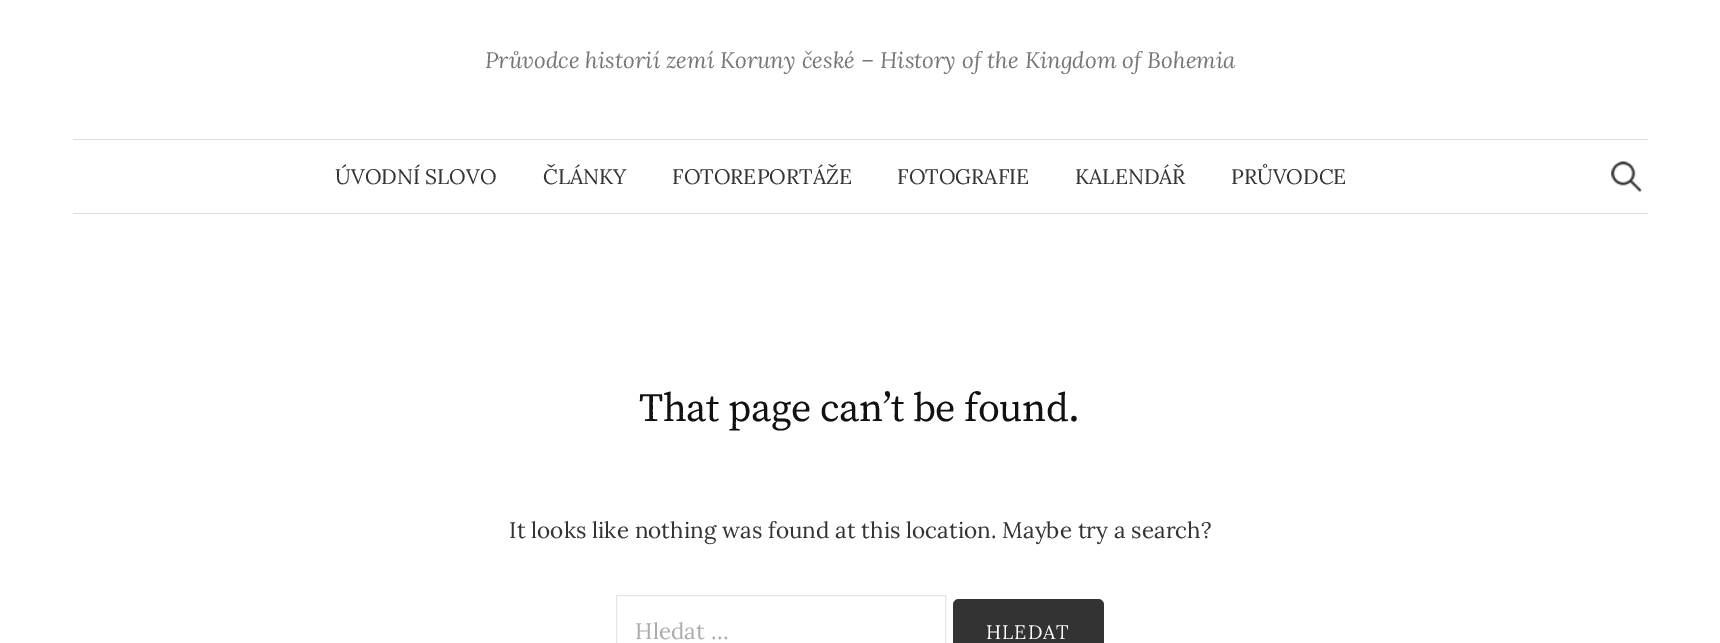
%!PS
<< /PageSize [1720 643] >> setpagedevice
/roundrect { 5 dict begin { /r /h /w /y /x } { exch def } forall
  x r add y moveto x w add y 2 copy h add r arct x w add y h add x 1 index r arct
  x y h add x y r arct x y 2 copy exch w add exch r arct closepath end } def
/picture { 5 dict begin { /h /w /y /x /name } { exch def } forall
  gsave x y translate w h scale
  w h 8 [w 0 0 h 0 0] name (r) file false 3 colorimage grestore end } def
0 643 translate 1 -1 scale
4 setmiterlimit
1 setgray
0 0 1720 643 rectfill
/Lora-Italic [22.5 0 0 -22.5 0 0] selectfont
0.467 setgray
485 68 moveto (Průvodce historií zemí Koruny české – History of the Kingdom of Bohemia) show
0.867 setgray
73 139 1575 1 rectfill
73 213 1575 1 rectfill
/Lora-Regular [21 0 0 -21 0 0] selectfont
0.2 setgray
335 184 moveto (ÚVODNÍ SLOVO) show
543 184 moveto (ČLÁNKY) show
672 184 moveto (FOTOREPORTÁŽE) show
897 184 moveto (FOTOGRAFIE) show
1075 184 moveto (KALENDÁŘ) show
1231 184 moveto (PRŮVODCE) show
(img1.rgb) 1611 161 31 31 picture
/SourceSerifPro-Regular [40 0 0 -40 0 0] selectfont
0.067 setgray
639 421 moveto -0.4 0 (That page can’t be found.) ashow
/Lora-Regular [22.5 0 0 -22.5 0 0] selectfont
0.2 setgray
509 538 moveto (It looks like nothing was found at this location. Maybe try a search?) show
0.902 setgray
616.5 595.5 329 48 rectstroke
0.675 setgray
635 639 moveto (Hledat …) show
0.2 setgray
953 599 151 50 6 roundrect fill
/Lora-Regular [19.5 0 0 -19.5 0 0] selectfont
1 setgray
986 639 moveto 1 0 (HLEDAT) ashow
showpage
